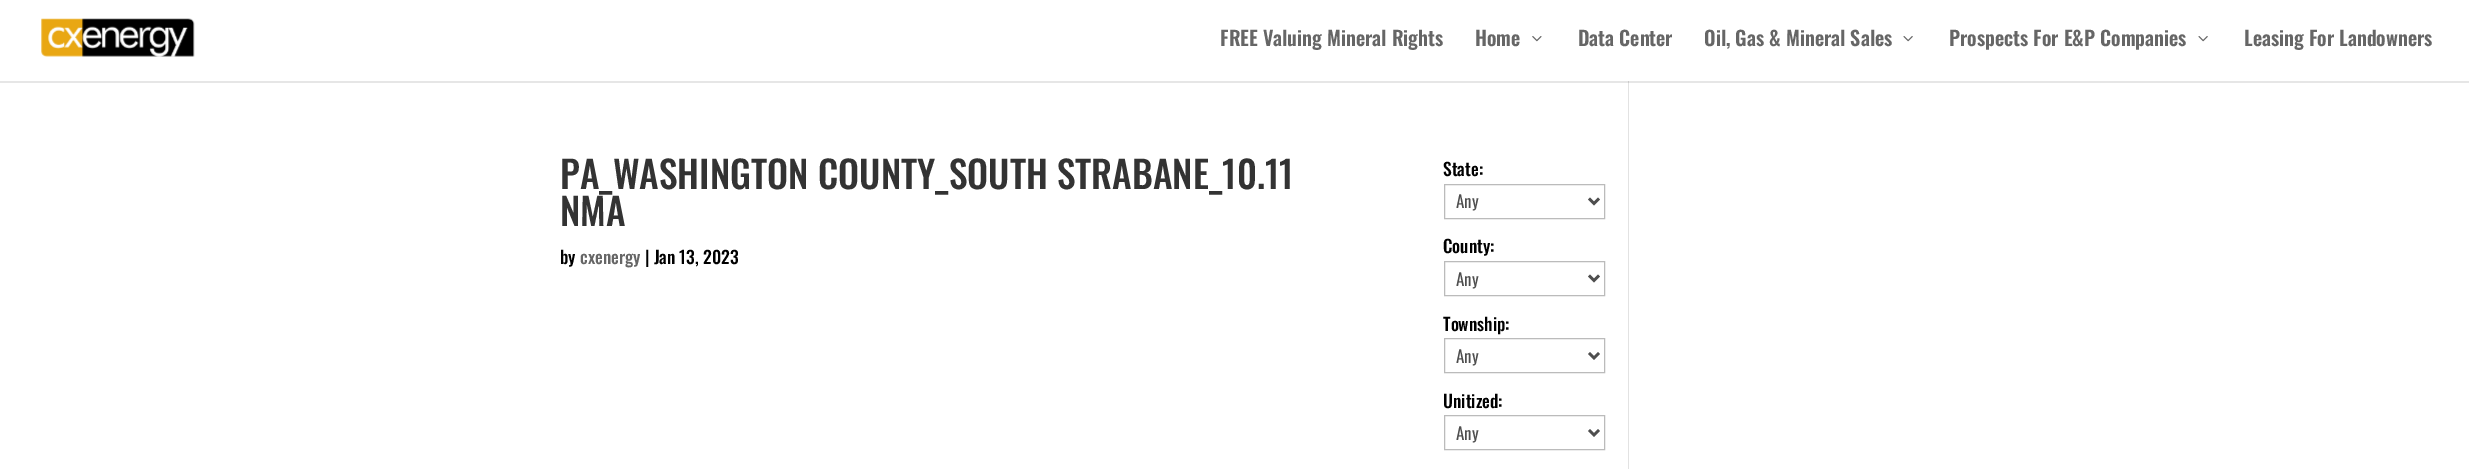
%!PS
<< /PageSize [2469 469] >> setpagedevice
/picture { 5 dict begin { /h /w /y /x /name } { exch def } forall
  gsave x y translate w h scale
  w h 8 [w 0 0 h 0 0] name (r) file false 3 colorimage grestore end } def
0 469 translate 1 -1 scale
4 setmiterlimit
1 setgray
0 0 2469 469 rectfill
0.902 setgray
0 81 2469 2 rectfill
(img1.rgb) 41 18 154 39 picture
/Oswald-SemiBold [20 0 0 -20 0 0] selectfont
0.4 setgray
1220 46 moveto (FREE Valuing Mineral Rights) show
1475 46 moveto (Home) show
(img2.rgb) 1532 36 10 6 picture
1578 46 moveto (Data Center) show
1704 46 moveto (Oil, Gas & Mineral Sales) show
(img3.rgb) 1903 36 10 6 picture
1949 46 moveto (Prospects For E&P Companies) show
(img3.rgb) 2198 36 10 6 picture
2244 46 moveto (Leasing For Landowners) show
/Oswald-Medium [37.5 0 0 -37.5 0 0] selectfont
0.2 setgray
560 189 moveto (PA_WASHINGTON COUNTY_SOUTH STRABANE_10.11) show
560 226 moveto (NMA) show
/Oswald-Medium [17.5 0 0 -17.5 0 0] selectfont
0 setgray
560 264 moveto (by) show
0.4 setgray
580 264 moveto (cxenergy) show
0 setgray
645 264 moveto (| Jan 13, 2023) show
1443 176 moveto (State:) show
0.733 setgray
1444.5 184.5 160 34 rectstroke
0.306 setgray
2.5 setlinewidth
newpath 1589 198.5 moveto 1594 203.5 lineto 1599 198.5 lineto stroke
/Oswald-Regular [17 0 0 -17 0 0] selectfont
1456 208 moveto (Any) show
/Oswald-Medium [17.5 0 0 -17.5 0 0] selectfont
0 setgray
1443 253 moveto (County:) show
0.733 setgray
1 setlinewidth
1444.5 261.5 160 34 rectstroke
0.306 setgray
2.5 setlinewidth
newpath 1589 275.5 moveto 1594 280.5 lineto 1599 275.5 lineto stroke
/Oswald-Regular [17 0 0 -17 0 0] selectfont
1456 286 moveto (Any) show
/Oswald-Medium [17.5 0 0 -17.5 0 0] selectfont
0 setgray
1443 331 moveto (Township:) show
0.733 setgray
1 setlinewidth
1444.5 338.5 160 34 rectstroke
0.306 setgray
2.5 setlinewidth
newpath 1589 353 moveto 1594 358 lineto 1599 353 lineto stroke
/Oswald-Regular [17 0 0 -17 0 0] selectfont
1456 363 moveto (Any) show
/Oswald-Medium [17.5 0 0 -17.5 0 0] selectfont
0 setgray
1443 408 moveto (Unitized:) show
0.733 setgray
1 setlinewidth
1444.5 415.5 160 34 rectstroke
0.306 setgray
2.5 setlinewidth
newpath 1589 430 moveto 1594 435 lineto 1599 430 lineto stroke
/Oswald-Regular [17 0 0 -17 0 0] selectfont
1456 440 moveto (Any) show
0.886 setgray
1628 81 1 388 rectfill
0.796 setgray
1628 81 1 2 rectfill
showpage
